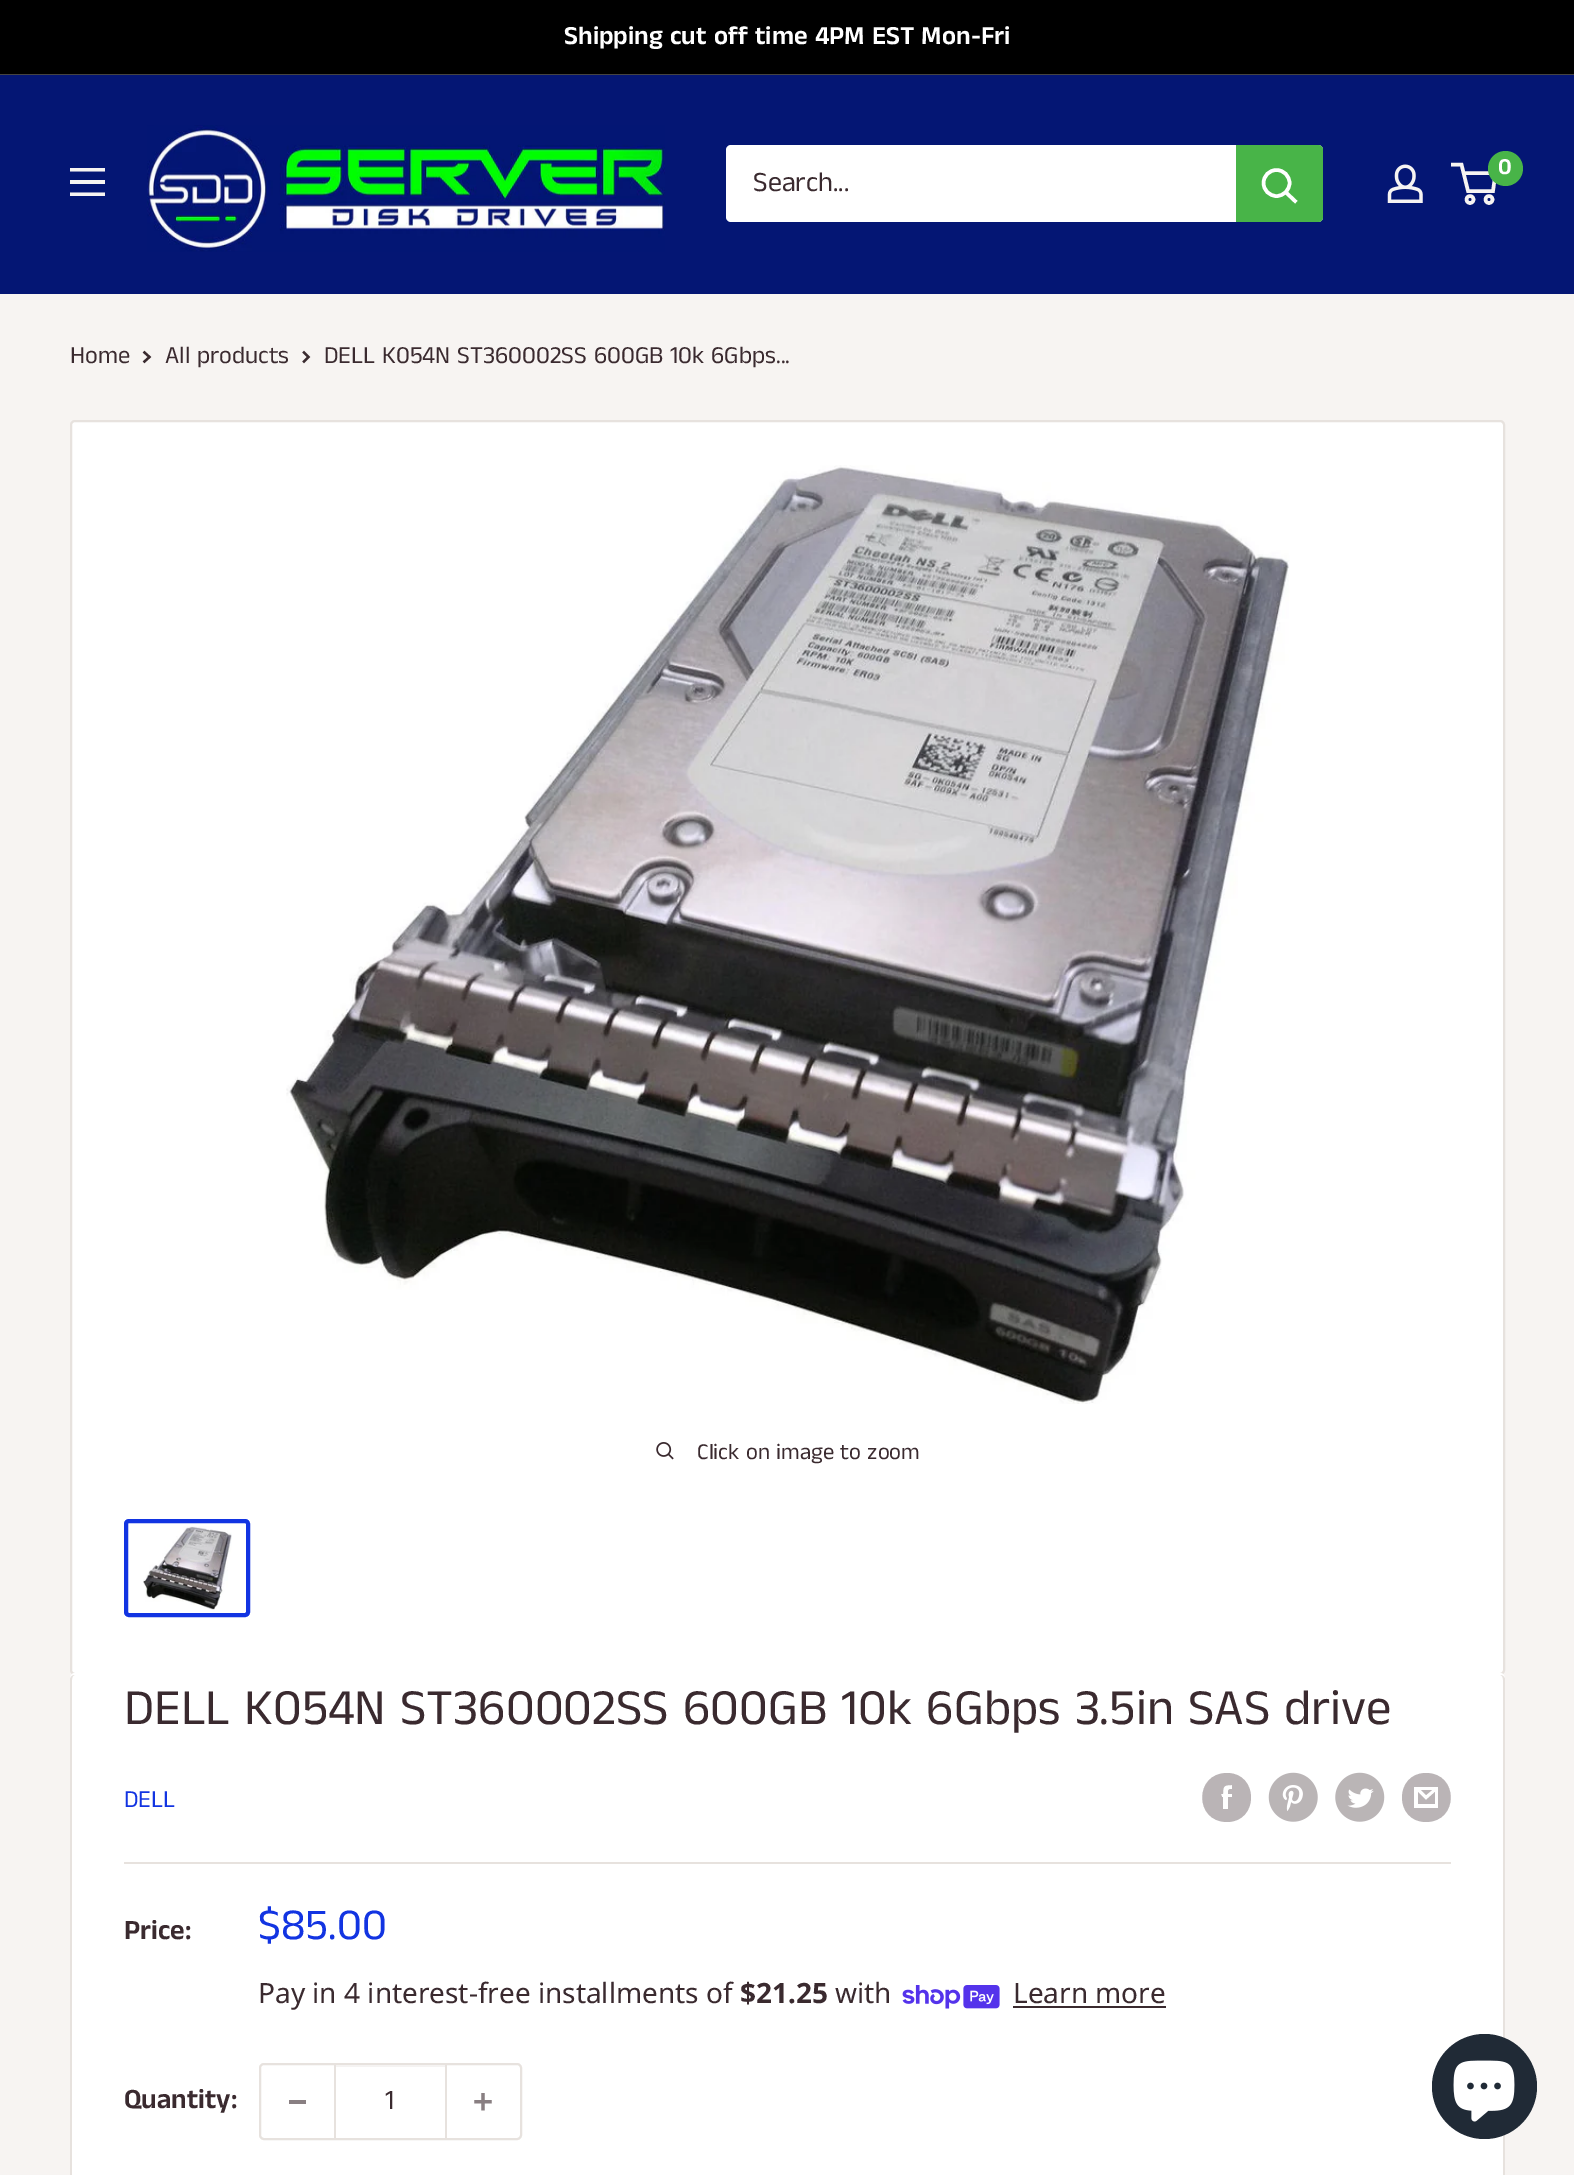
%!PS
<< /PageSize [1574 2175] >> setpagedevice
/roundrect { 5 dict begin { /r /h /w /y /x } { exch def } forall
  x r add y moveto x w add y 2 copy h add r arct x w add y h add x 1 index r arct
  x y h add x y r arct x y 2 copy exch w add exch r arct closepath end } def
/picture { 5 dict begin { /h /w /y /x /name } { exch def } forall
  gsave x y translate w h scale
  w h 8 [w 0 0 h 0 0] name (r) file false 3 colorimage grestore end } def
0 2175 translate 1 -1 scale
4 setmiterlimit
0.969 0.957 0.949 setrgbcolor
0 0 1574 2175 rectfill
0 setgray
0 0 1574 74 rectfill
0.275 0.267 0.259 setrgbcolor
0 74 1574 1 rectfill
/AnekTamil-SemiBold [26.25 0 0 -26.25 0 0] selectfont
1 setgray
564 44 moveto (Shipping cut off time 4PM EST Mon-Fri) show
0.016 0.086 0.455 setrgbcolor
0 75 1574 219 rectfill
0.969 0.957 0.949 setrgbcolor
newpath 70 192.5 moveto 105 192.5 lineto 105 196 lineto 70 196 lineto closepath 70 168 moveto 105 168 lineto 105 171.5 lineto 70 171.5 lineto closepath 70 180 moveto 105 180 lineto 105 184 lineto 70 184 lineto closepath eofill
(img1.rgb) 147 125 518 127 picture
1 setgray
726 145 597 77 5 roundrect fill
/AnekTamil-Regular [28 0 0 -28 0 0] selectfont
0.227 0.165 0.184 setrgbcolor
753 191 moveto (Search...) show
0.282 0.706 0.282 setrgbcolor
newpath 1236 145 moveto 1318 145 lineto 1321 145 1323 147 1323 150 curveto 1323 217 lineto 1323 220 1321 222 1318 222 curveto 1236 222 lineto closepath fill
1 setgray
3.5 setlinewidth
2 setlinecap
newpath 1295 201 moveto 1286 192.5 lineto stroke
0 setlinecap
newpath 1276.5 183 13 0 360 arc closepath stroke
(img2.rgb) 1387 164 36 39 picture
0.969 0.957 0.949 setrgbcolor
newpath 1470 199.5 3.5 0 360 arc closepath stroke
newpath 1489 199.5 3.5 0 360 arc closepath stroke
newpath 1463.5 173 moveto 1495.5 173 lineto 1493 191 lineto 1468 191 lineto 1461.5 164.5 lineto 1451 164.5 lineto stroke
0.282 0.706 0.282 setrgbcolor
newpath 1505.5 168.5 17.5 0 360 arc closepath fill
/AnekTamil-SemiBold [23 0 0 -23 0 0] selectfont
1 setgray
1498 174 moveto (0) show
/AnekTamil-Regular [24.5 0 0 -24.5 0 0] selectfont
0.227 0.165 0.184 setrgbcolor
70 363 moveto (Home) show
2.3 setlinewidth
2 setlinecap
newpath 144.5 352.5 moveto 149.5 357 lineto 144.5 361.5 lineto stroke
165 363 moveto (All products) show
newpath 304 352.5 moveto 308.5 357 lineto 304 361.5 lineto stroke
324 363 moveto (DELL K054N ST360002SS 600GB 10k 6Gbps...) show
1 setgray
71 421 1433 1253 4 roundrect gsave fill grestore
0.906 0.886 0.871 setrgbcolor
2 setlinewidth
0 setlinecap
stroke
(img3.rgb) 286 465 1004 939 picture
(img4.rgb) 656 1442 18 18 picture
/AnekTamil-Regular [22.75 0 0 -22.75 0 0] selectfont
0.227 0.165 0.184 setrgbcolor
697 1459 moveto (Click on image to zoom) show
0.071 0.204 0.886 setrgbcolor
4 setlinewidth
126 1521 122 94 3 roundrect stroke
(img5.rgb) 143 1526 89 84 picture
1 setgray
newpath 75 1673 moveto 71 1673 70 1677 70 1680 curveto 70 1677 72 1675 75 1675 curveto 1500 1675 lineto 1503 1675 1505 1677 1505 1680 curveto 1505 1677 1504 1673 1500 1673 curveto closepath fill
70 1675 1435 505 5 roundrect fill
0.906 0.886 0.871 setrgbcolor
newpath 75 1675 moveto 1500 1675 lineto 1503 1675 1505 1677 1505 1680 curveto 1505 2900 lineto 1505 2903 1503 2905 1500 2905 curveto 75 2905 lineto 72 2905 70 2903 70 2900 curveto 70 1680 lineto 70 1677 72 1675 75 1675 curveto closepath 75 1675 moveto 1500 1675 lineto 1502 1675 1503 1677 1503 1680 curveto 1503 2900 lineto 1503 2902 1502 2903 1500 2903 curveto 75 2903 lineto 73 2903 72 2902 72 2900 curveto 72 1680 lineto 72 1677 73 1675 75 1675 curveto closepath eofill
/AnekTamil-Regular [50.75 0 0 -50.75 0 0] selectfont
0.227 0.165 0.184 setrgbcolor
124 1724 moveto (DELL K054N ST360002SS 600GB 10k 6Gbps 3.5in SAS drive) show
/AnekTamil-Regular [24.5 0 0 -24.5 0 0] selectfont
0.071 0.204 0.886 setrgbcolor
124 1807 moveto (DELL) show
0.729 0.706 0.714 setrgbcolor
newpath 1227 1822 moveto 1194 1822 1194 1773 1227 1773 curveto 1259 1773 1259 1822 1227 1822 curveto closepath 1232 1794 moveto 1228 1794 lineto 1228 1790 1228 1789 1232 1789 curveto 1232 1785 lineto 1224 1785 1223 1786 1223 1794 curveto 1221 1794 lineto 1222 1797 lineto 1223 1797 lineto 1223 1809 lineto 1228 1809 lineto 1228 1797 lineto 1232 1797 lineto closepath eofill
(img6.rgb) 1268 1772 50 50 picture
(img7.rgb) 1335 1772 50 50 picture
newpath 1426 1822 moveto 1394 1822 1394 1773 1426 1773 curveto 1459 1773 1459 1822 1426 1822 curveto closepath 1421 1790 moveto 1432 1790 lineto 1426 1795 lineto closepath 1435 1792 moveto 1435 1804 lineto 1418 1804 lineto 1418 1792 lineto 1426 1800 lineto closepath 1438 1787 moveto 1414 1787 lineto 1414 1808 lineto 1438 1808 lineto closepath fill
0.906 0.886 0.871 setrgbcolor
124 1862 1327 2 rectfill
/AnekTamil-SemiBold [28 0 0 -28 0 0] selectfont
0.227 0.165 0.184 setrgbcolor
124 1939 moveto (Price:) show
/AnekTamil-Regular [44 0 0 -44 0 0] selectfont
0.071 0.204 0.886 setrgbcolor
258 1939 moveto ($85.00) show
/NotoSans-Regular [28 0 0 -28 0 0] selectfont
0.227 0.165 0.184 setrgbcolor
258 2003 moveto (Pay in 4 interest-free installments of) show
/NotoSans-Bold [28 0 0 -28 0 0] selectfont
740 2003 moveto ($21.25) show
/NotoSans-Regular [28 0 0 -28 0 0] selectfont
835 2003 moveto (with) show
(img8.rgb) 902 1985 98 24 picture
1013 2003 moveto (Learn more) show
1013 2006 153 2 rectfill
/AnekTamil-SemiBold [28 0 0 -28 0 0] selectfont
124 2108 moveto (Quantity:) show
0.906 0.886 0.871 setrgbcolor
2 setlinewidth
260 2064 261 75 4 roundrect stroke
0.537 0.498 0.51 setrgbcolor
289 2100 17 4 rectfill
0.961 0.953 0.949 setrgbcolor
336 2065 109 2 rectfill
0.906 0.886 0.871 setrgbcolor
445 2065 2 74 rectfill
334 2065 2 74 rectfill
/AnekTamil-Regular [28 0 0 -28 0 0] selectfont
0.227 0.165 0.184 setrgbcolor
385 2109 moveto (1) show
(img9.rgb) 474 2093 18 18 picture
0.125 0.165 0.212 setrgbcolor
newpath 1484.5 2086.5 52.5 0 360 arc closepath fill
(img10.rgb) 1453 2060 62 62 picture
showpage
